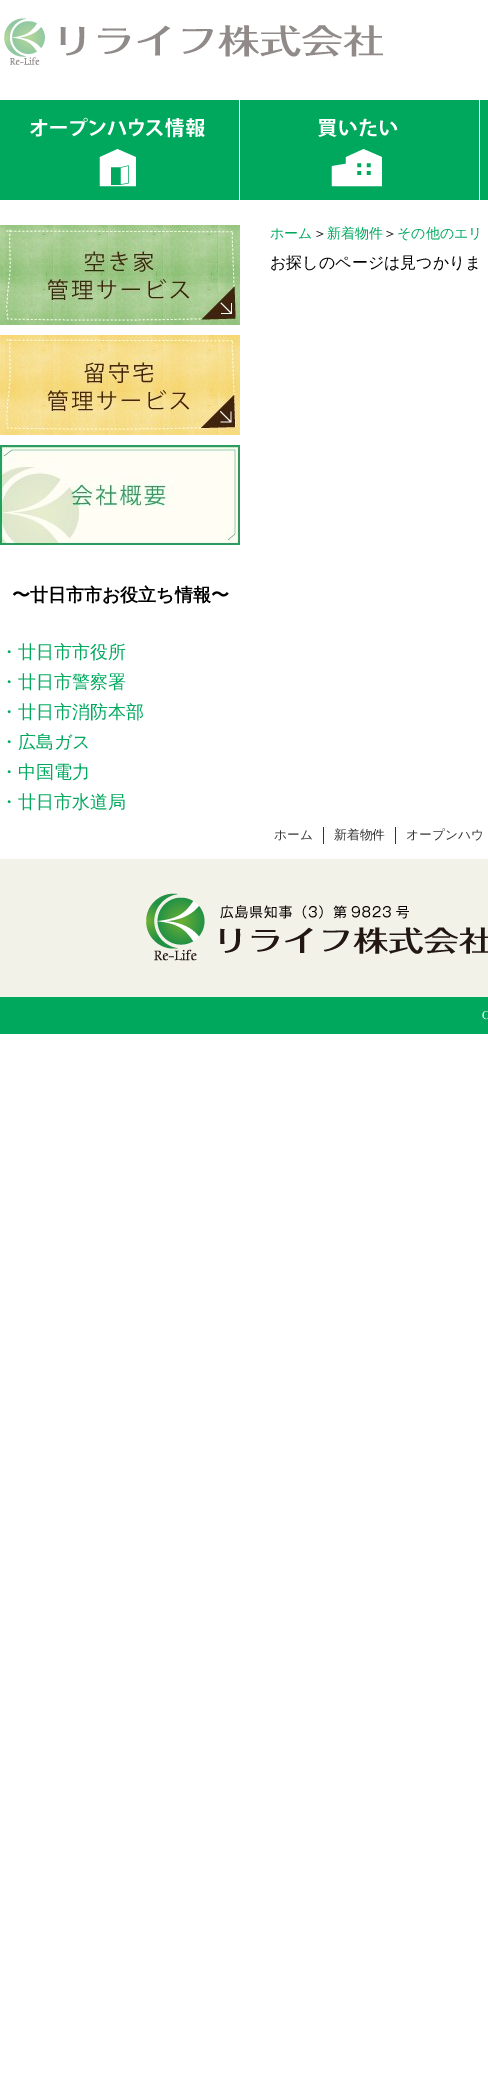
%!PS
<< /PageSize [488 2088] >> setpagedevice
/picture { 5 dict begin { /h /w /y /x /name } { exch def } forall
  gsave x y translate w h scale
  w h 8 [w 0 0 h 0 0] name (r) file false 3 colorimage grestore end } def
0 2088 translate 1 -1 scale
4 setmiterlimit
1 setgray
0 0 488 2088 rectfill
(img1.rgb) 4 18 379 47 picture
(img2.rgb) 0 100 239 100 picture
(img3.rgb) 240 100 239 100 picture
0 0.659 0.369 setrgbcolor
480 100 8 100 rectfill
/WenQuanYiZenHei-Medium [14 0 0 -14 0 0] selectfont
270 238 moveto (ホーム) show
0 setgray
313 238 moveto (＞) show
0 0.659 0.369 setrgbcolor
327 238 moveto (新着物件) show
0 setgray
383 238 moveto (＞) show
0 0.659 0.369 setrgbcolor
397 238 moveto (その他のエリ) show
/WenQuanYiZenHei-Medium [16 0 0 -16 0 0] selectfont
0 setgray
270 268 moveto (お探しのページは見つかりま) show
(img4.rgb) 0 225 240 100 picture
(img5.rgb) 0 335 240 100 picture
(img6.rgb) 0 445 240 100 picture
/WenQuanYiZenHei-Bold [18 0 0 -18 0 0] selectfont
12 601 moveto (〜廿日市市お役立ち情報〜) show
/WenQuanYiZenHei-Medium [18 0 0 -18 0 0] selectfont
0 0.659 0.369 setrgbcolor
0 658 moveto (・廿日市市役所) show
0 688 moveto (・廿日市警察署) show
0 718 moveto (・廿日市消防本部) show
0 748 moveto (・広島ガス) show
0 778 moveto (・中国電力) show
0 808 moveto (・廿日市水道局) show
0.2 setgray
323 827 1 17 rectfill
/WenQuanYiZenHei-Medium [12.75 0 0 -12.75 0 0] selectfont
274 839 moveto (ホーム) show
395 827 1 17 rectfill
334 839 moveto (新着物件) show
406 839 moveto (オープンハウ) show
(img7.rgb) 0 859 488 138 picture
0 0.659 0.369 setrgbcolor
0 997 488 37 rectfill
/LiberationSerif-Regular [12 0 0 -12 0 0] selectfont
1 setgray
482 1019 moveto (C) show
showpage
